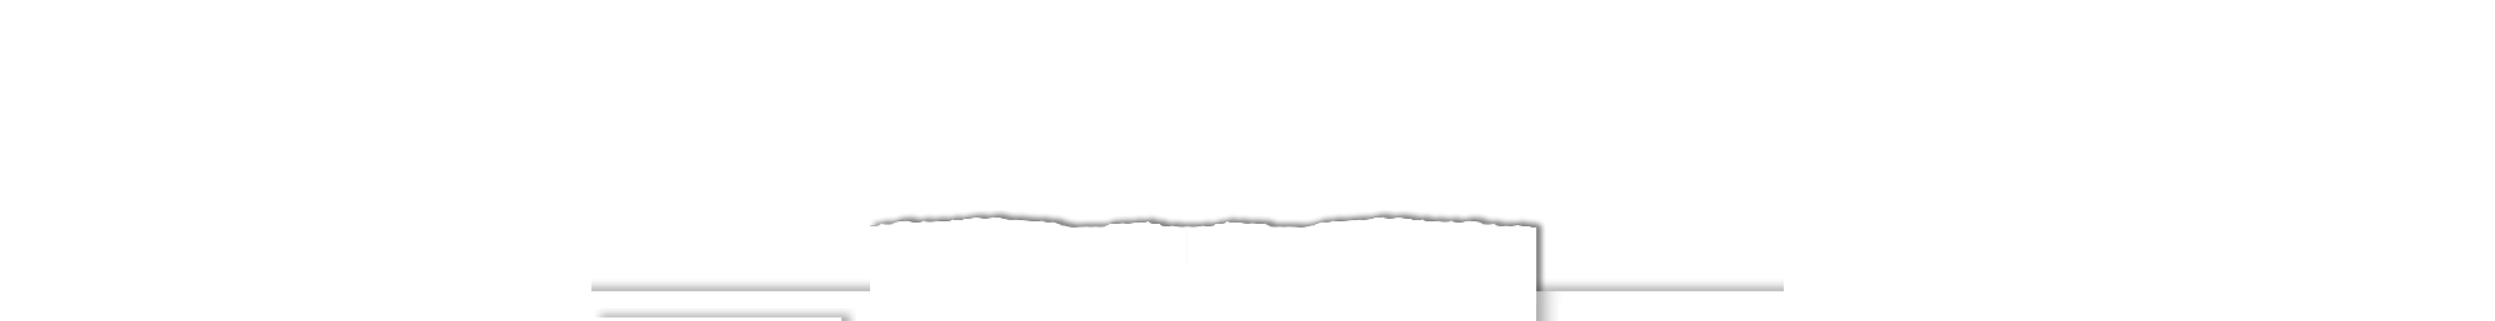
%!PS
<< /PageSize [2495 321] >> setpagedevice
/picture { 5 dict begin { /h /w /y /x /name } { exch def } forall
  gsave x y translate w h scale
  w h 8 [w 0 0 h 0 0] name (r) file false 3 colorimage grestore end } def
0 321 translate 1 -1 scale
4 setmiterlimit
1 setgray
0 0 2495 321 rectfill
(img1.rgb) 591 210 1193 95 picture
(img2.rgb) 595 308 261 10 picture
(img3.rgb) 841 317 15 4 picture
(img4.rgb) 1536 305 22 16 picture
showpage
